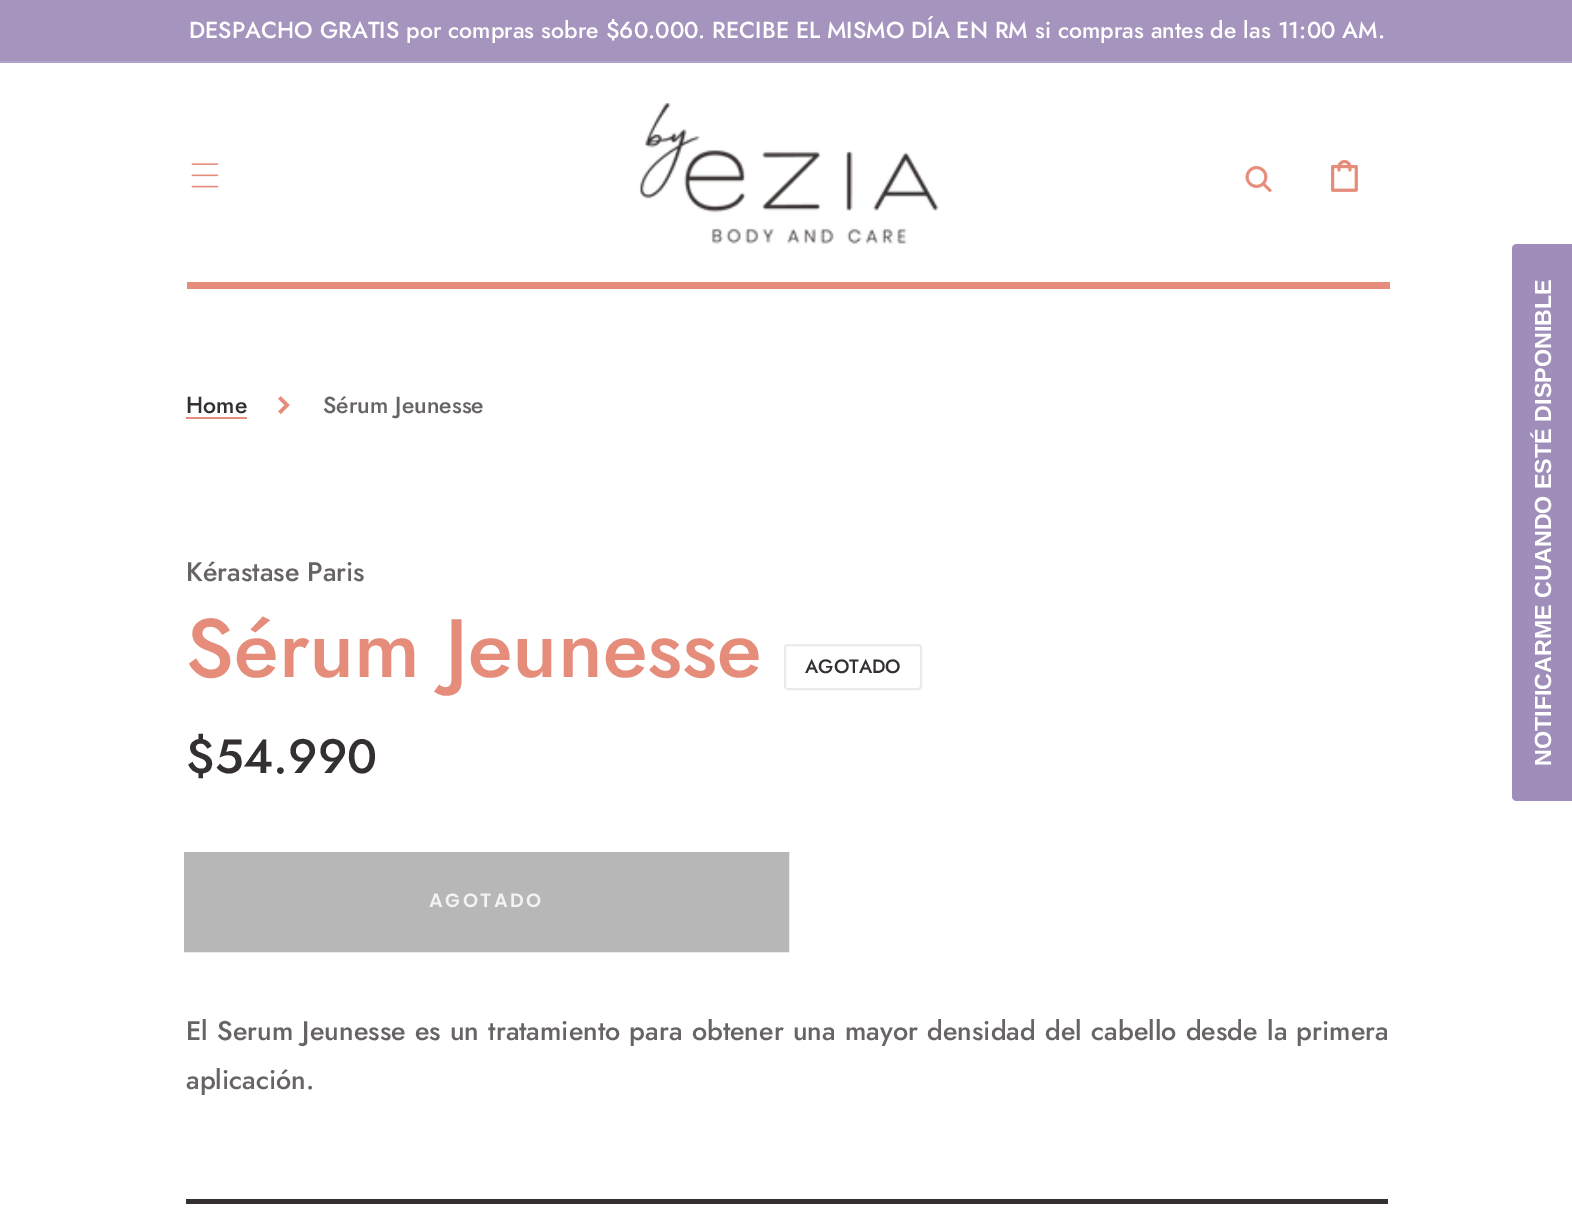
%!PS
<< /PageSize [1572 1215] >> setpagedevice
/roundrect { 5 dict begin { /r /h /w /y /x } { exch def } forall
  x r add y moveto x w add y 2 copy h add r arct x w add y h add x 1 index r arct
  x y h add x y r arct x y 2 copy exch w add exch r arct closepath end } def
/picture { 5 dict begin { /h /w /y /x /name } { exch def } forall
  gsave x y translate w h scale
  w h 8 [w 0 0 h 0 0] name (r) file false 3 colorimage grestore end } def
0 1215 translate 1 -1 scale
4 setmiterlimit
1 setgray
0 0 1572 1215 rectfill
0.698 0.643 0.784 setrgbcolor
0 61 1572 2 rectfill
0.647 0.58 0.745 setrgbcolor
0 0 1572 61 rectfill
/Jost-Medium [23.1 0 0 -23.1 0 0] selectfont
1 setgray
189 38 moveto (DESPACHO GRATIS por compras sobre $60.000. RECIBE EL MISMO DÍA EN RM si compras antes de las 11:00 AM.) show
(img1.rgb) 191 163 28 25 picture
(img2.rgb) 639 102 300 142 picture
(img3.rgb) 1245 166 27 27 picture
(img4.rgb) 1331 160 27 32 picture
0.898 0.549 0.478 setrgbcolor
187 282 1203 7 rectfill
0.208 0.188 0.188 setrgbcolor
186 413 moveto (Home) show
0.898 0.549 0.478 setrgbcolor
186 417 61 2 rectfill
(img5.rgb) 278 396 12 19 picture
0.408 0.392 0.392 setrgbcolor
323 413 moveto (Sérum Jeunesse) show
0.624 0.553 0.729 setrgbcolor
newpath 1512 796 moveto 1512 249 lineto 1512 246 1514 244 1517 244 curveto 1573 244 lineto 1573 801 lineto 1517 801 lineto 1514 801 1512 799 1512 796 curveto closepath fill
/LiberationSans-Bold [23.3 0 0 -23.3 0 0] selectfont
1 setgray
gsave 1551 766 translate -90 rotate 0 0 moveto (NOTIFICARME CUANDO ESTÉ DISPONIBLE) show grestore
/Jost-Medium [26.95 0 0 -26.95 0 0] selectfont
0.408 0.392 0.392 setrgbcolor
186 581 moveto (Kérastase Paris) show
/Jost-Medium [82.75 0 0 -82.75 0 0] selectfont
0.898 0.549 0.478 setrgbcolor
186 677 moveto (Sérum Jeunesse) show
0.922 0.918 0.918 setrgbcolor
2 setlinewidth
785 645 136 44 3 roundrect stroke
/Jost-Medium [19.25 0 0 -19.25 0 0] selectfont
0.208 0.188 0.188 setrgbcolor
805 673 moveto (AGOTADO) show
/Jost-Medium [48 0 0 -48 0 0] selectfont
186 773 moveto ($54.990) show
0.718 setgray
185 853 603 98 rectstroke
186 854 601 96 rectfill
/Poppins-SemiBold [19.25 0 0 -19.25 0 0] selectfont
0.953 setgray
429 907 moveto 2.5 0 (AGOTADO) ashow
/Jost-Medium [26.95 0 0 -26.95 0 0] selectfont
0.408 0.392 0.392 setrgbcolor
186 1040 moveto 1 0 32 (El Serum Jeunesse es un tratamiento para obtener una mayor densidad del cabello desde la primera) widthshow
186 1089 moveto (aplicación.) show
0.208 0.188 0.188 setrgbcolor
186 1199 1202 5 rectfill
showpage
